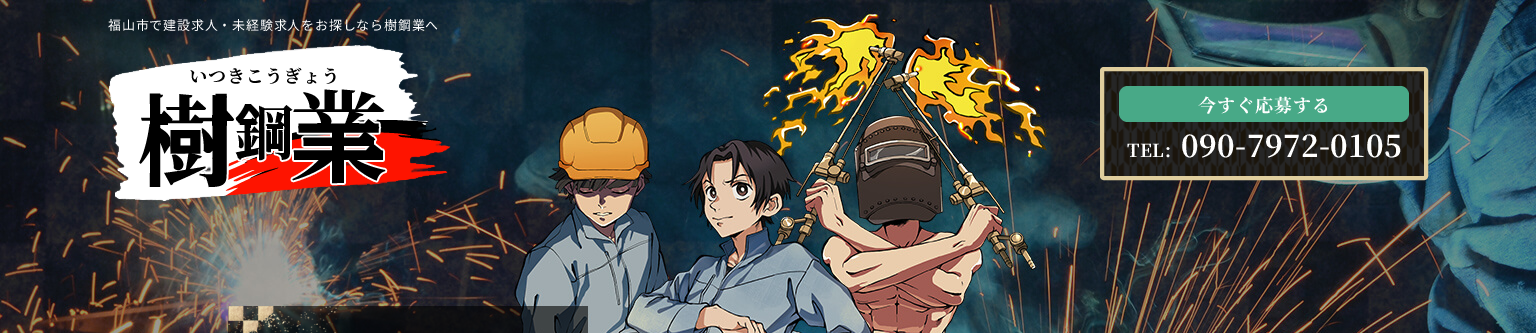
%!PS
<< /PageSize [1536 333] /PageUsesTransparency true >> setpagedevice
/alpha { dup .setfillconstantalpha .setstrokeconstantalpha } def
/roundrect { 5 dict begin { /r /h /w /y /x } { exch def } forall
  x r add y moveto x w add y 2 copy h add r arct x w add y h add x 1 index r arct
  x y h add x y r arct x y 2 copy exch w add exch r arct closepath end } def
/picture { 5 dict begin { /h /w /y /x /name } { exch def } forall
  gsave x y translate w h scale
  w h 8 [w 0 0 h 0 0] name (r) file false 3 colorimage grestore end } def
0 .pushpdf14devicefilter
0 333 translate 1 -1 scale
4 setmiterlimit
1 setgray
0 0 1536 333 rectfill
(img1.rgb) 0 0 1536 333 picture
/NotoSansJP-Regular [13 0 0 -13 0 0] selectfont
108 30 moveto 0.8 0 (福山市で建設求人・未経験求人をお探しなら樹鋼業へ) ashow
(img2.rgb) 108 45 343 157 picture
(img3.rgb) 1104 71 320 105 picture
0.878 0.808 0.616 setrgbcolor
4 setlinewidth
1102 69 324 109 2 roundrect stroke
0.282 0.663 0.529 setrgbcolor
1119 86 290 36 9 roundrect fill
/NotoSerifJP-Bold [18 0 0 -18 0 0] selectfont
1 setgray
1198 112 moveto 1 0 (今すぐ応募する) ashow
1127 157 moveto 0.5 0 (TEL:) ashow
/NotoSerifJP-Bold [30 0 0 -30 0 0] selectfont
1181 157 moveto 0.5 0 (090-7972-0105) ashow
0.6 alpha
0 setgray
228 306 360 27 rectfill
1 alpha
(img4.rgb) 228 306 110 27 picture
.poppdf14devicefilter showpage
